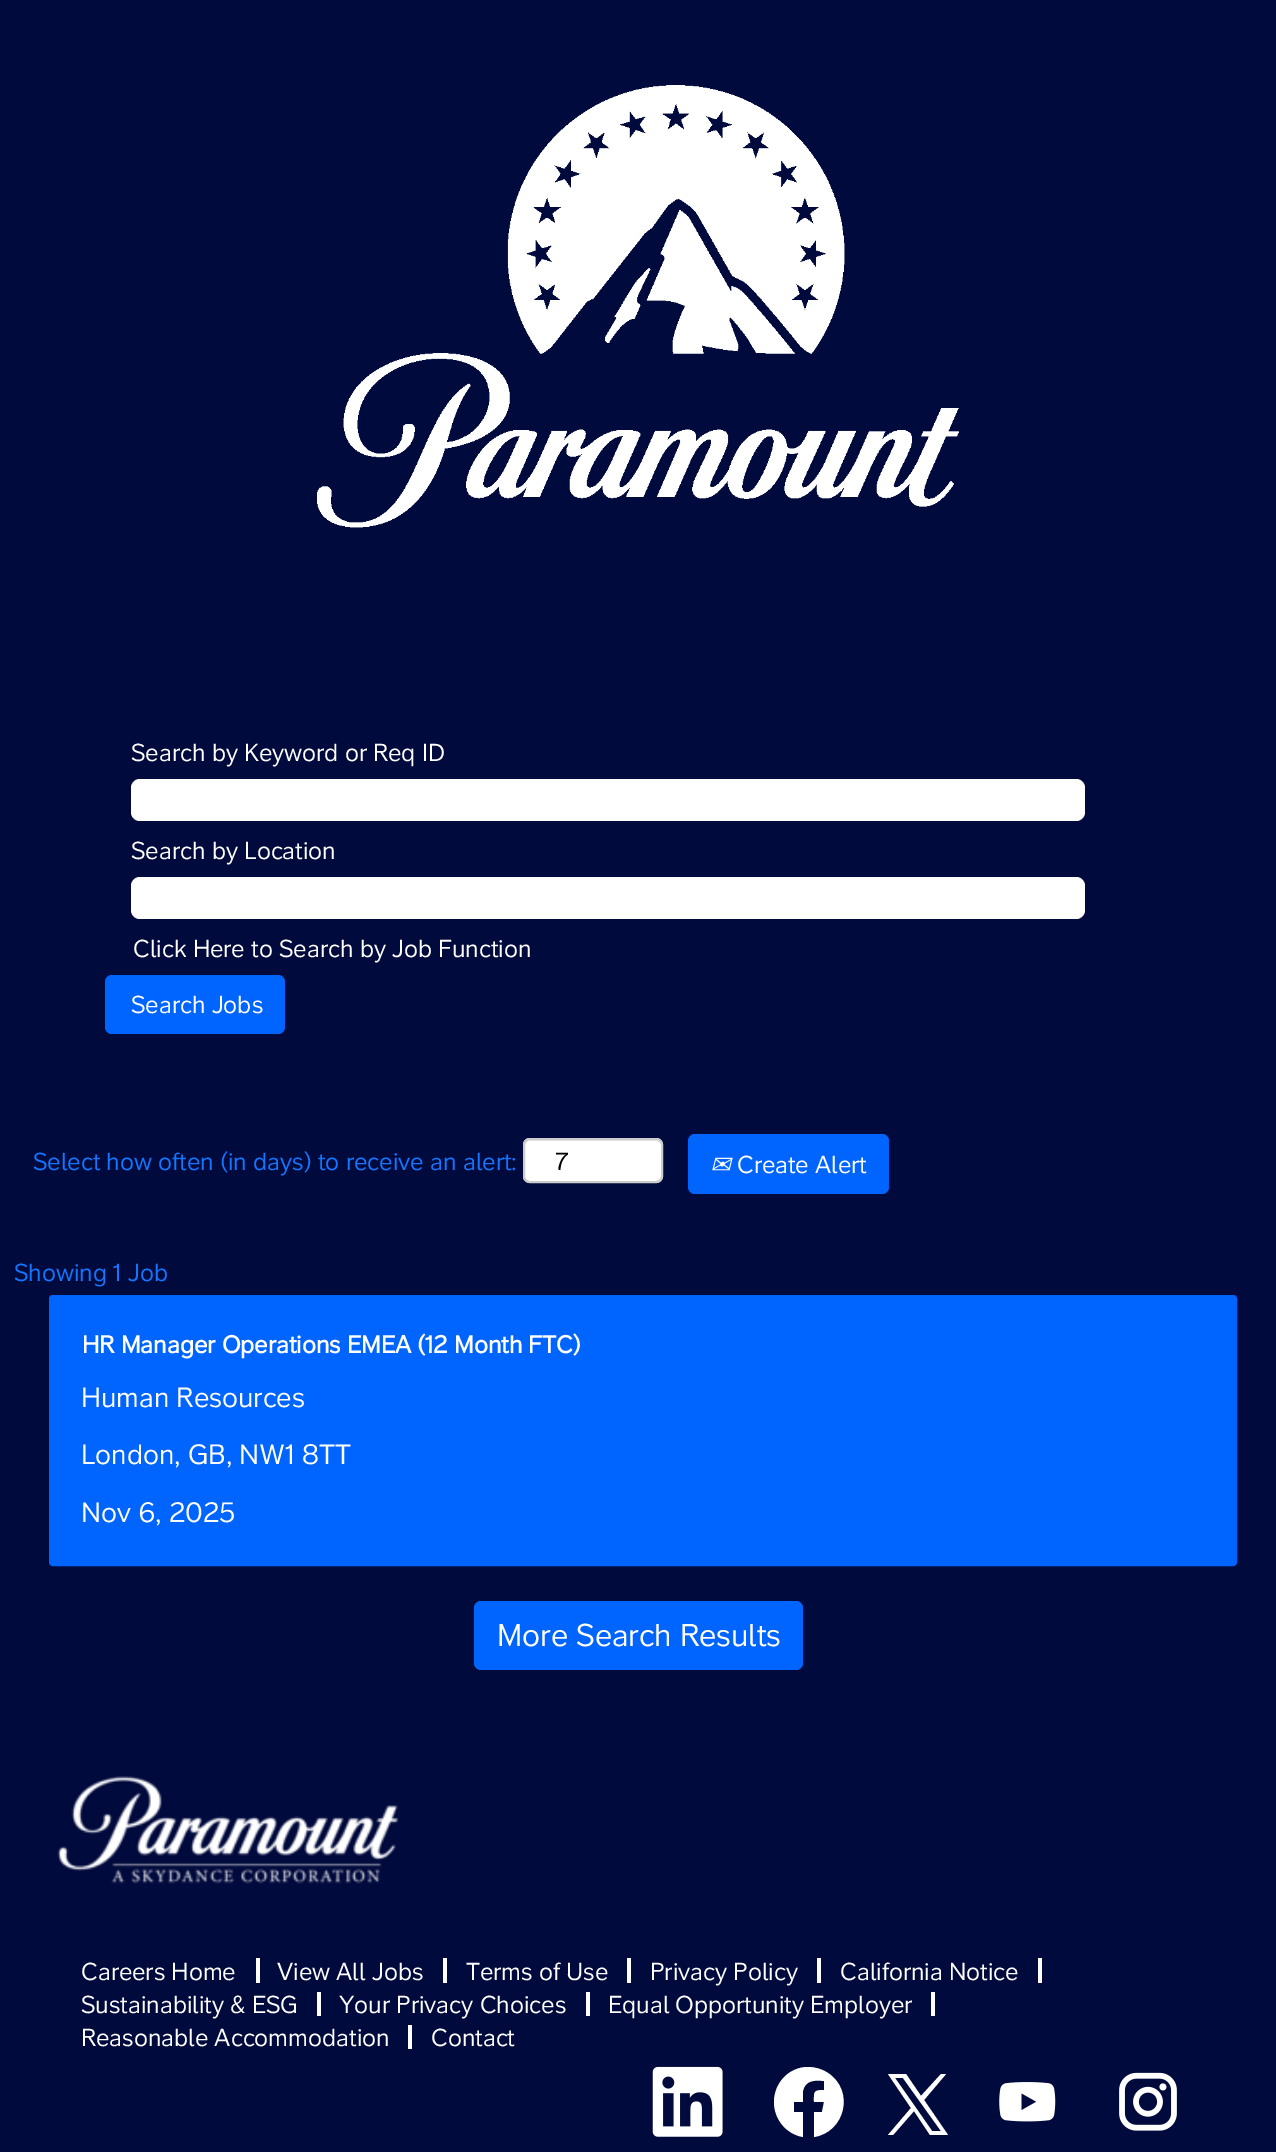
%!PS
<< /PageSize [1276 2152] >> setpagedevice
/roundrect { 5 dict begin { /r /h /w /y /x } { exch def } forall
  x r add y moveto x w add y 2 copy h add r arct x w add y h add x 1 index r arct
  x y h add x y r arct x y 2 copy exch w add exch r arct closepath end } def
/picture { 5 dict begin { /h /w /y /x /name } { exch def } forall
  gsave x y translate w h scale
  w h 8 [w 0 0 h 0 0] name (r) file false 3 colorimage grestore end } def
0 2152 translate 1 -1 scale
4 setmiterlimit
0 0.039 0.235 setrgbcolor
0 0 1276 2152 rectfill
(img1.rgb) 317 85 642 443 picture
/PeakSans-Regular [24.5 0 0 -24.5 0 0] selectfont
1 setgray
131 761 moveto (Search by Keyword or Req ID) show
131 779 954 42 9 roundrect fill
131 859 moveto (Search by Location) show
131 877 954 42 9 roundrect fill
133 957 moveto (Click Here to Search by Job Function) show
0 0.392 1 setrgbcolor
105 975 180 59 7 roundrect fill
1 setgray
131 1013 moveto (Search Jobs) show
0.078 0.459 1 setrgbcolor
33 1170 moveto (Select how often \(in days\) to receive an alert:) show
1 setgray
523 1138 140 45 7 roundrect fill
0.925 setgray
newpath 530 1141 moveto 656 1141 lineto 659 1141 662 1143 662 1146 curveto 662 1144 lineto 662 1141 660 1139 657 1139 curveto 530 1139 lineto 527 1139 525 1141 525 1144 curveto 525 1146 lineto 525 1143 527 1141 530 1141 curveto closepath fill
0.8 setgray
2 setlinewidth
524 1139 138 43 6 roundrect stroke
0 setgray
555 1170 moveto (7) show
0 0.392 1 setrgbcolor
688 1134 201 60 7 roundrect fill
/DejaVuSans-Italic [24.5 0 0 -24.5 0 0] selectfont
1 setgray
710 1173 moveto (✉) show
/PeakSans-Regular [24.5 0 0 -24.5 0 0] selectfont
737 1173 moveto (Create Alert) show
0.078 0.459 1 setrgbcolor
14 1281 moveto (Showing 1 Job) show
0 0.392 1 setrgbcolor
51.5 1297.5 1183 266 1.5 roundrect gsave fill grestore
5 setlinewidth
stroke
/PeakSans-Bold [24.5 0 0 -24.5 0 0] selectfont
1 setgray
82 1353 moveto (HR Manager Operations EMEA \(12 Month FTC\)) show
/PeakSans-Regular [28 0 0 -28 0 0] selectfont
81 1407 moveto (Human Resources) show
81 1464 moveto (London, GB, NW1 8TT) show
81 1522 moveto (Nov 6, 2025) show
0 0.392 1 setrgbcolor
474 1601 329 69 7 roundrect fill
/PeakSans-Regular [31.5 0 0 -31.5 0 0] selectfont
1 setgray
497 1646 moveto (More Search Results) show
(img2.rgb) 57 1776 342 108 picture
256 1958 4 25 rectfill
/PeakSans-Regular [24.5 0 0 -24.5 0 0] selectfont
81 1980 moveto (Careers Home) show
443 1958 4 25 rectfill
277 1980 moveto (View All Jobs) show
627 1958 4 25 rectfill
466 1980 moveto (Terms of Use) show
817 1958 4 25 rectfill
650 1980 moveto (Privacy Policy) show
1038 1958 4 25 rectfill
840 1980 moveto (California Notice) show
317 1992 4 24 rectfill
81 2013 moveto (Sustainability & ESG) show
586 1992 4 24 rectfill
339 2013 moveto (Your Privacy Choices) show
931 1992 4 24 rectfill
608 2013 moveto (Equal Opportunity Employer) show
408 2025 4 24 rectfill
81 2046 moveto (Reasonable Accommodation) show
431 2046 moveto (Contact) show
(img3.rgb) 652 2066 71 71 picture
newpath 808 2067 moveto 789 2067 774 2083 774 2102 curveto 774 2119 786 2134 803 2137 curveto 803 2112 lineto 794 2112 lineto 794 2102 lineto 803 2102 lineto 803 2091 lineto 805 2080 815 2080 824 2081 curveto 824 2090 lineto 813 2090 814 2092 814 2102 curveto 824 2102 lineto 822 2112 lineto 814 2112 lineto 814 2137 lineto 845 2132 855 2091 828 2073 curveto 822 2069 815 2067 808 2067 curveto closepath fill
newpath 924 2100 moveto 946 2074 lineto 941 2074 lineto 921 2096 lineto 906 2074 lineto 888 2074 lineto 911 2108 lineto 888 2135 lineto 893 2135 lineto 914 2111 lineto 930 2135 lineto 948 2135 lineto closepath 916 2108 moveto 895 2078 lineto 903 2078 lineto 941 2131 lineto 932 2131 lineto closepath fill
(img4.rgb) 999 2082 57 40 picture
(img5.rgb) 1119 2072 58 59 picture
showpage
